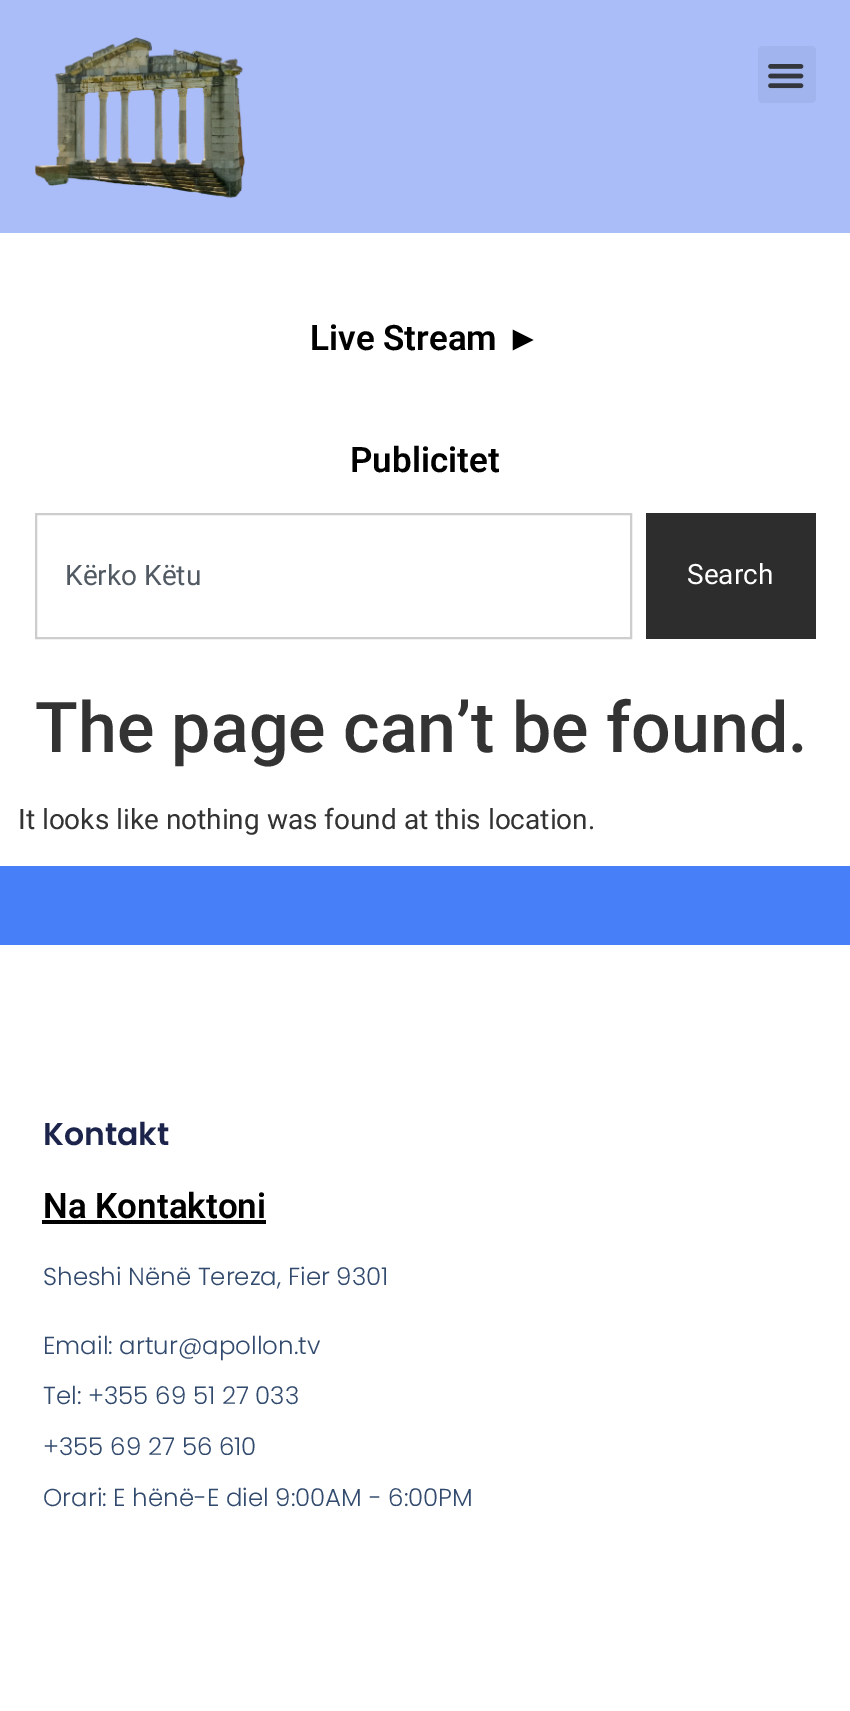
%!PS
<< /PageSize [850 1711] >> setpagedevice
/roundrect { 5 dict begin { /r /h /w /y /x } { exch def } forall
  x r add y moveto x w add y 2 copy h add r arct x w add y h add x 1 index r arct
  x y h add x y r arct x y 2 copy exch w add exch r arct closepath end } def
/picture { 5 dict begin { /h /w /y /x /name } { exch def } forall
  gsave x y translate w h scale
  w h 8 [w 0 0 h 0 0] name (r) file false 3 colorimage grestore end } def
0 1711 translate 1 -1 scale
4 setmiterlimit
1 setgray
0 0 850 1711 rectfill
0.667 0.741 0.976 setrgbcolor
0 0 850 233 rectfill
(img1.rgb) 35 37 210 161 picture
0.635 0.706 0.929 setrgbcolor
758 46 58 57 5 roundrect fill
(img2.rgb) 768 64 36 25 picture
/Roboto-SemiBold [35 0 0 -35 0 0] selectfont
0 setgray
310 350 moveto (Live Stream) show
/LiberationSans-Bold [35 0 0 -35 0 0] selectfont
506 350 moveto (►) show
/Roboto-SemiBold [35 0 0 -35 0 0] selectfont
350 472 moveto (Publicitet) show
0.804 setgray
2 setlinewidth
36 514 595 124 rectstroke
/Roboto-Regular [28 0 0 -28 0 0] selectfont
0.318 0.349 0.384 setrgbcolor
65 585 moveto (Kërko Këtu) show
0.176 setgray
646 513 170 126 rectfill
1 setgray
687 584 moveto (Search) show
/Roboto-Medium [70 0 0 -70 0 0] selectfont
0.2 setgray
35 752 moveto (The page can’t be found.) show
/Roboto-Regular [28 0 0 -28 0 0] selectfont
18 829 moveto (It looks like nothing was found at this location.) show
0.275 0.498 0.969 setrgbcolor
0 866 850 79 rectfill
/Poppins-SemiBold [31.5 0 0 -31.5 0 0] selectfont
0.11 0.141 0.294 setrgbcolor
43 1145 moveto (Kontakt) show
/Roboto-SemiBold [35 0 0 -35 0 0] selectfont
0 setgray
43 1218 moveto (Na Kontaktoni) show
42 1220 224 4 rectfill
/Poppins-Light [24.5 0 0 -24.5 0 0] selectfont
0.196 0.29 0.427 setrgbcolor
43 1285 moveto (Sheshi Nënë Tereza, Fier 9301) show
43 1354 moveto (Email: artur@apollon.tv) show
43 1404 moveto (Tel: +355 69 51 27 033) show
43 1455 moveto (+355 69 27 56 610) show
43 1506 moveto (Orari: E hënë-E diel 9:00AM - 6:00PM) show
showpage
